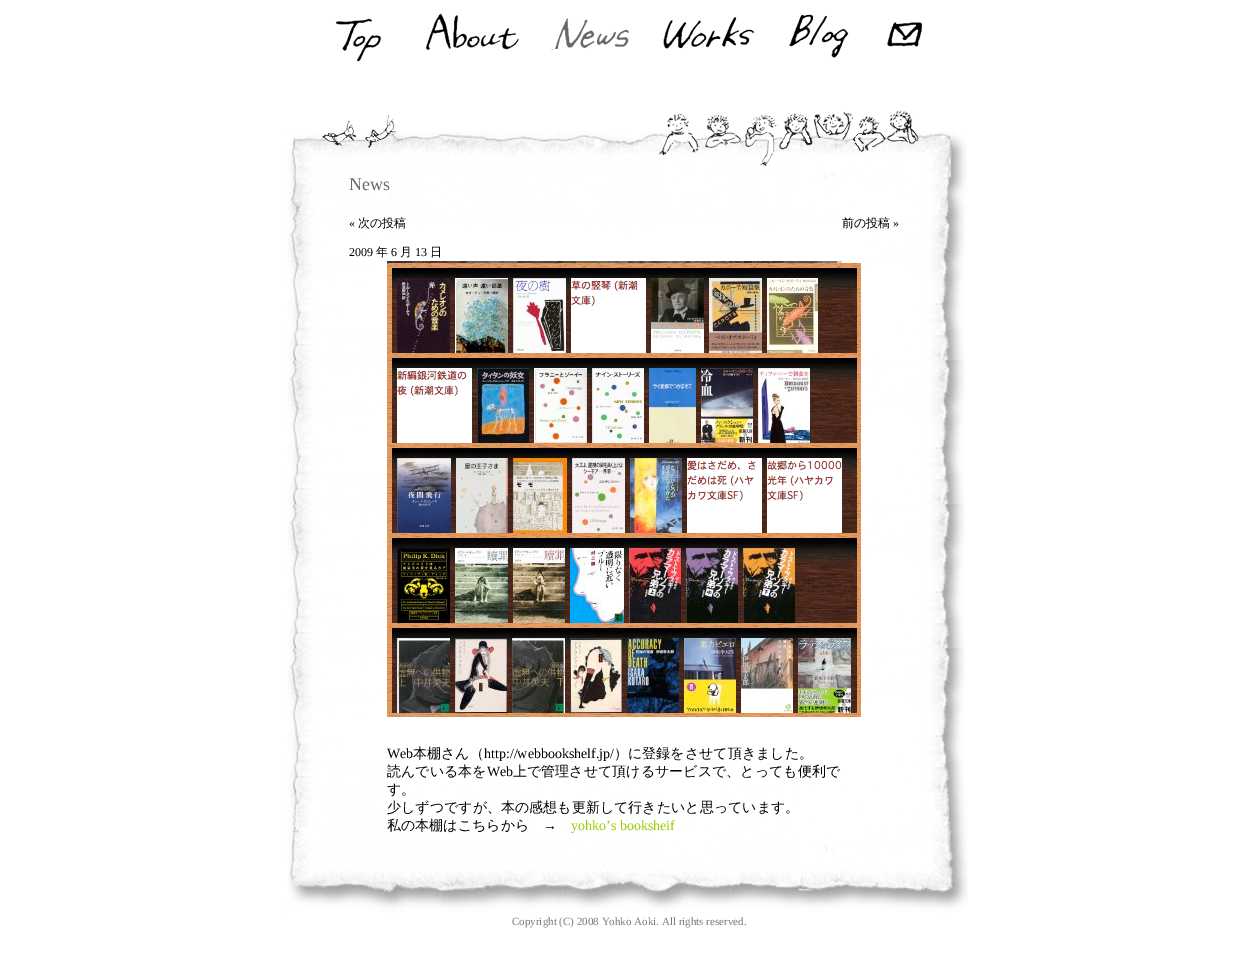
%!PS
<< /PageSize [1258 979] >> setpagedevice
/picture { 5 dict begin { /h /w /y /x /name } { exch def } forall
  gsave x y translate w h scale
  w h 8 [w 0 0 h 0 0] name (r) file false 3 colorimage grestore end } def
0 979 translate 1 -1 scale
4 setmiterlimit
1 setgray
0 0 1258 979 rectfill
(img1.rgb) 335 18 46 44 picture
(img2.rgb) 426 13 93 37 picture
(img3.rgb) 551 18 78 32 picture
(img4.rgb) 663 17 92 32 picture
(img5.rgb) 789 14 60 44 picture
(img6.rgb) 887 22 35 25 picture
(img7.rgb) 287 216 678 699 picture
(img8.rgb) 287 74 680 142 picture
/LiberationSerif-Regular [18 0 0 -18 0 0] selectfont
0.412 setgray
349 190 moveto (News) show
/LiberationSerif-Regular [12 0 0 -12 0 0] selectfont
0 setgray
349 227 moveto («) show
/WenQuanYiZenHei-Medium [12 0 0 -12 0 0] selectfont
358 227 moveto (次の投稿) show
842 227 moveto (前の投稿) show
/LiberationSerif-Regular [12 0 0 -12 0 0] selectfont
893 227 moveto (») show
(img9.rgb) 288 792 680 123 picture
349 256 moveto (2009) show
/WenQuanYiZenHei-Medium [12 0 0 -12 0 0] selectfont
376 256 moveto (年) show
/LiberationSerif-Regular [12 0 0 -12 0 0] selectfont
391 256 moveto (6) show
/WenQuanYiZenHei-Medium [12 0 0 -12 0 0] selectfont
400 256 moveto (月) show
/LiberationSerif-Regular [12 0 0 -12 0 0] selectfont
415 256 moveto (13) show
/WenQuanYiZenHei-Medium [12 0 0 -12 0 0] selectfont
430 256 moveto (日) show
(img10.rgb) 387 261 474 456 picture
/LiberationSerif-Regular [14 0 0 -14 0 0] selectfont
387 758 moveto (Web) show
/WenQuanYiZenHei-Medium [14 0 0 -14 0 0] selectfont
413 758 moveto (本棚さん（) show
/LiberationSerif-Regular [14 0 0 -14 0 0] selectfont
484 758 moveto (http://webbookshelf.jp/) show
/WenQuanYiZenHei-Medium [14 0 0 -14 0 0] selectfont
614 758 moveto (）に登録をさせて頂きました。) show
387 776 moveto (読んでいる本を) show
/LiberationSerif-Regular [14 0 0 -14 0 0] selectfont
487 776 moveto (Web) show
/WenQuanYiZenHei-Medium [14 0 0 -14 0 0] selectfont
513 776 moveto (上で管理させて頂けるサービスで、とっても便利で) show
387 794 moveto (す。) show
387 812 moveto (少しずつですが、本の感想も更新して行きたいと思っています。) show
387 830 moveto (私の本棚はこちらから) show
/LiberationSerif-Regular [14 0 0 -14 0 0] selectfont
543 830 moveto (→) show
0.6 0.8 0 setrgbcolor
571 830 moveto (yohko’s booksheif) show
/LiberationSerif-Regular [11 0 0 -11 0 0] selectfont
0.478 setgray
512 925 moveto (Copyright \(C\) 2008 Yohko Aoki. All rights reserved.) show
showpage
